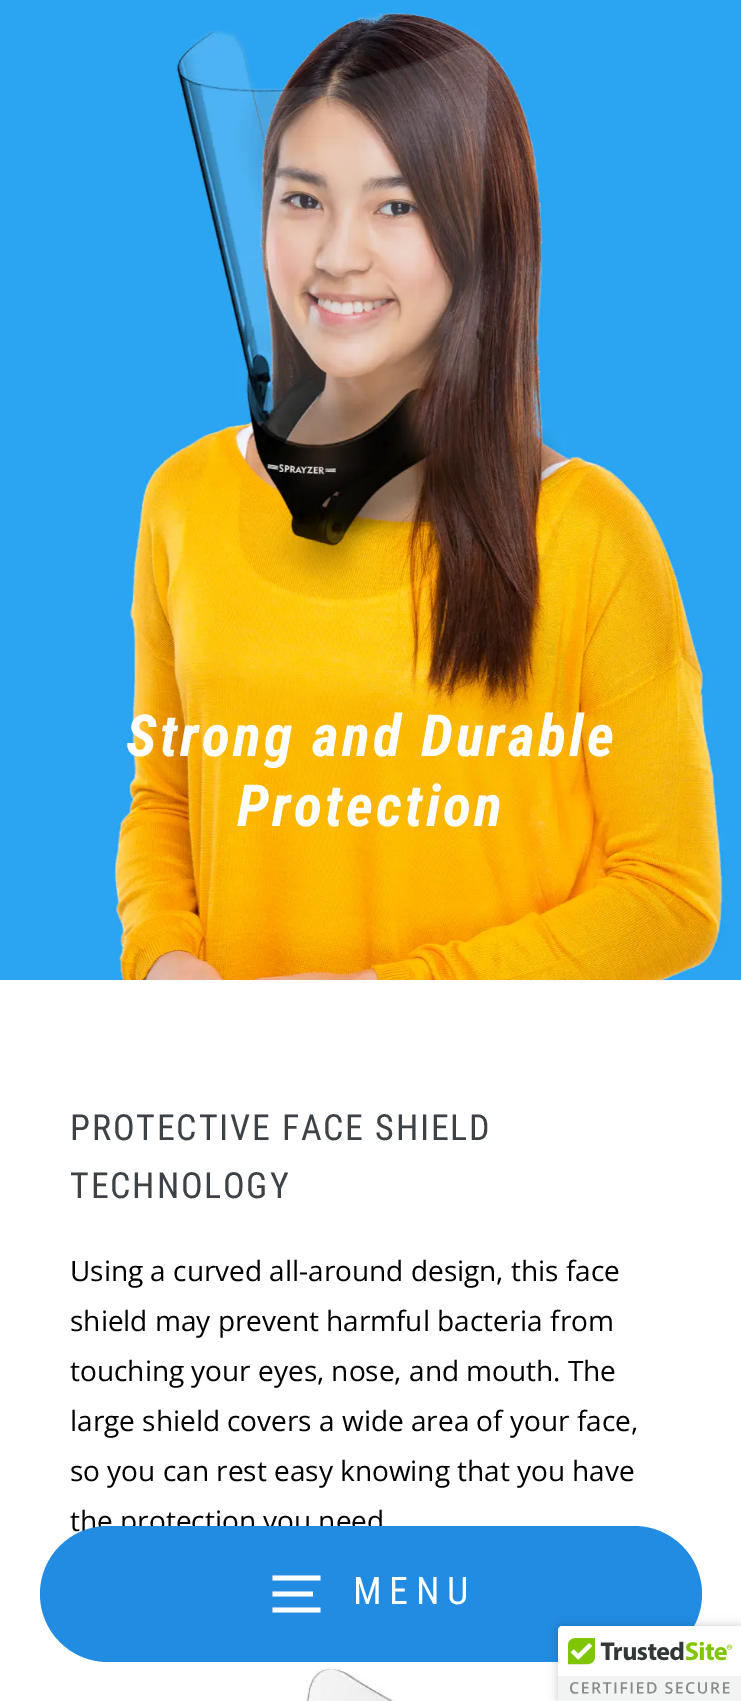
%!PS
<< /PageSize [741 1701] /PageUsesTransparency true >> setpagedevice
/alpha { dup .setfillconstantalpha .setstrokeconstantalpha } def
/roundrect { 5 dict begin { /r /h /w /y /x } { exch def } forall
  x r add y moveto x w add y 2 copy h add r arct x w add y h add x 1 index r arct
  x y h add x y r arct x y 2 copy exch w add exch r arct closepath end } def
/shadow { 12 dict begin { /a /b /q /h /w /y /x } { exch def } forall gsave /was 0 def
  9 -2 -9 { dup b mul 4 div /e exch def 1 sub .425 mul 2.718 exch exp 1 add a .99 .min exch div /now exch def
    1 1 now sub 1 was sub div sub alpha /was now def
    w h .min e 2 mul add 0 gt { x e sub y e sub w e 2 mul add h e 2 mul add
      q e add b .6 mul add w h .min 2 div e add .min 0 .max roundrect fill } if } for grestore end } def
/picture { 5 dict begin { /h /w /y /x /name } { exch def } forall
  gsave x y translate w h scale
  w h 8 [w 0 0 h 0 0] name (r) file false 3 colorimage grestore end } def
0 .pushpdf14devicefilter
0 1701 translate 1 -1 scale
4 setmiterlimit
1 setgray
0 0 741 1701 rectfill
(img1.rgb) 0 0 741 980 picture
/RobotoCondensed-BoldItalic [58 0 0 -58 0 0] selectfont
126 756 moveto 3.25 0 (Strong and Durable) ashow
237 826 moveto 3.25 0 (Protection) ashow
/RobotoCondensed-Regular [36 0 0 -36 0 0] selectfont
0.239 0.259 0.275 setrgbcolor
70 1140 moveto 1.8 0 (PROTECTIVE FACE SHIELD) ashow
70 1198 moveto 1.8 0 (TECHNOLOGY) ashow
/OpenSans-Regular [28 0 0 -28 0 0] selectfont
0 setgray
70 1281 moveto (Using a curved all-around design, this face) show
70 1331 moveto (shield may prevent harmful bacteria from) show
70 1381 moveto (touching your eyes, nose, and mouth. The) show
70 1431 moveto (large shield covers a wide area of your face,) show
70 1481 moveto (so you can rest easy knowing that you have) show
70 1531 moveto (the protection you need) show
(img2.rgb) 306 1667 88 34 picture
0.133 0.549 0.89 setrgbcolor
40 1526 662 136 68 roundrect fill
1 setgray
4.7 setlinewidth
newpath 272.5 1578 moveto 320.5 1578 lineto 272.5 1594 moveto 313 1594 lineto 272.5 1610 moveto 320.5 1610 lineto stroke
/RobotoCondensed-Regular [38 0 0 -38 0 0] selectfont
353 1604 moveto 7.5 0 (MENU) ashow
0 setgray
558 1626 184 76 4 5 0.2 shadow
1 setgray
newpath 562 1626 moveto 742 1626 lineto 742 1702 lineto 558 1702 lineto 558 1630 lineto 558 1628 560 1626 562 1626 curveto closepath fill
(img3.rgb) 558 1626 183 75 picture
.poppdf14devicefilter showpage
